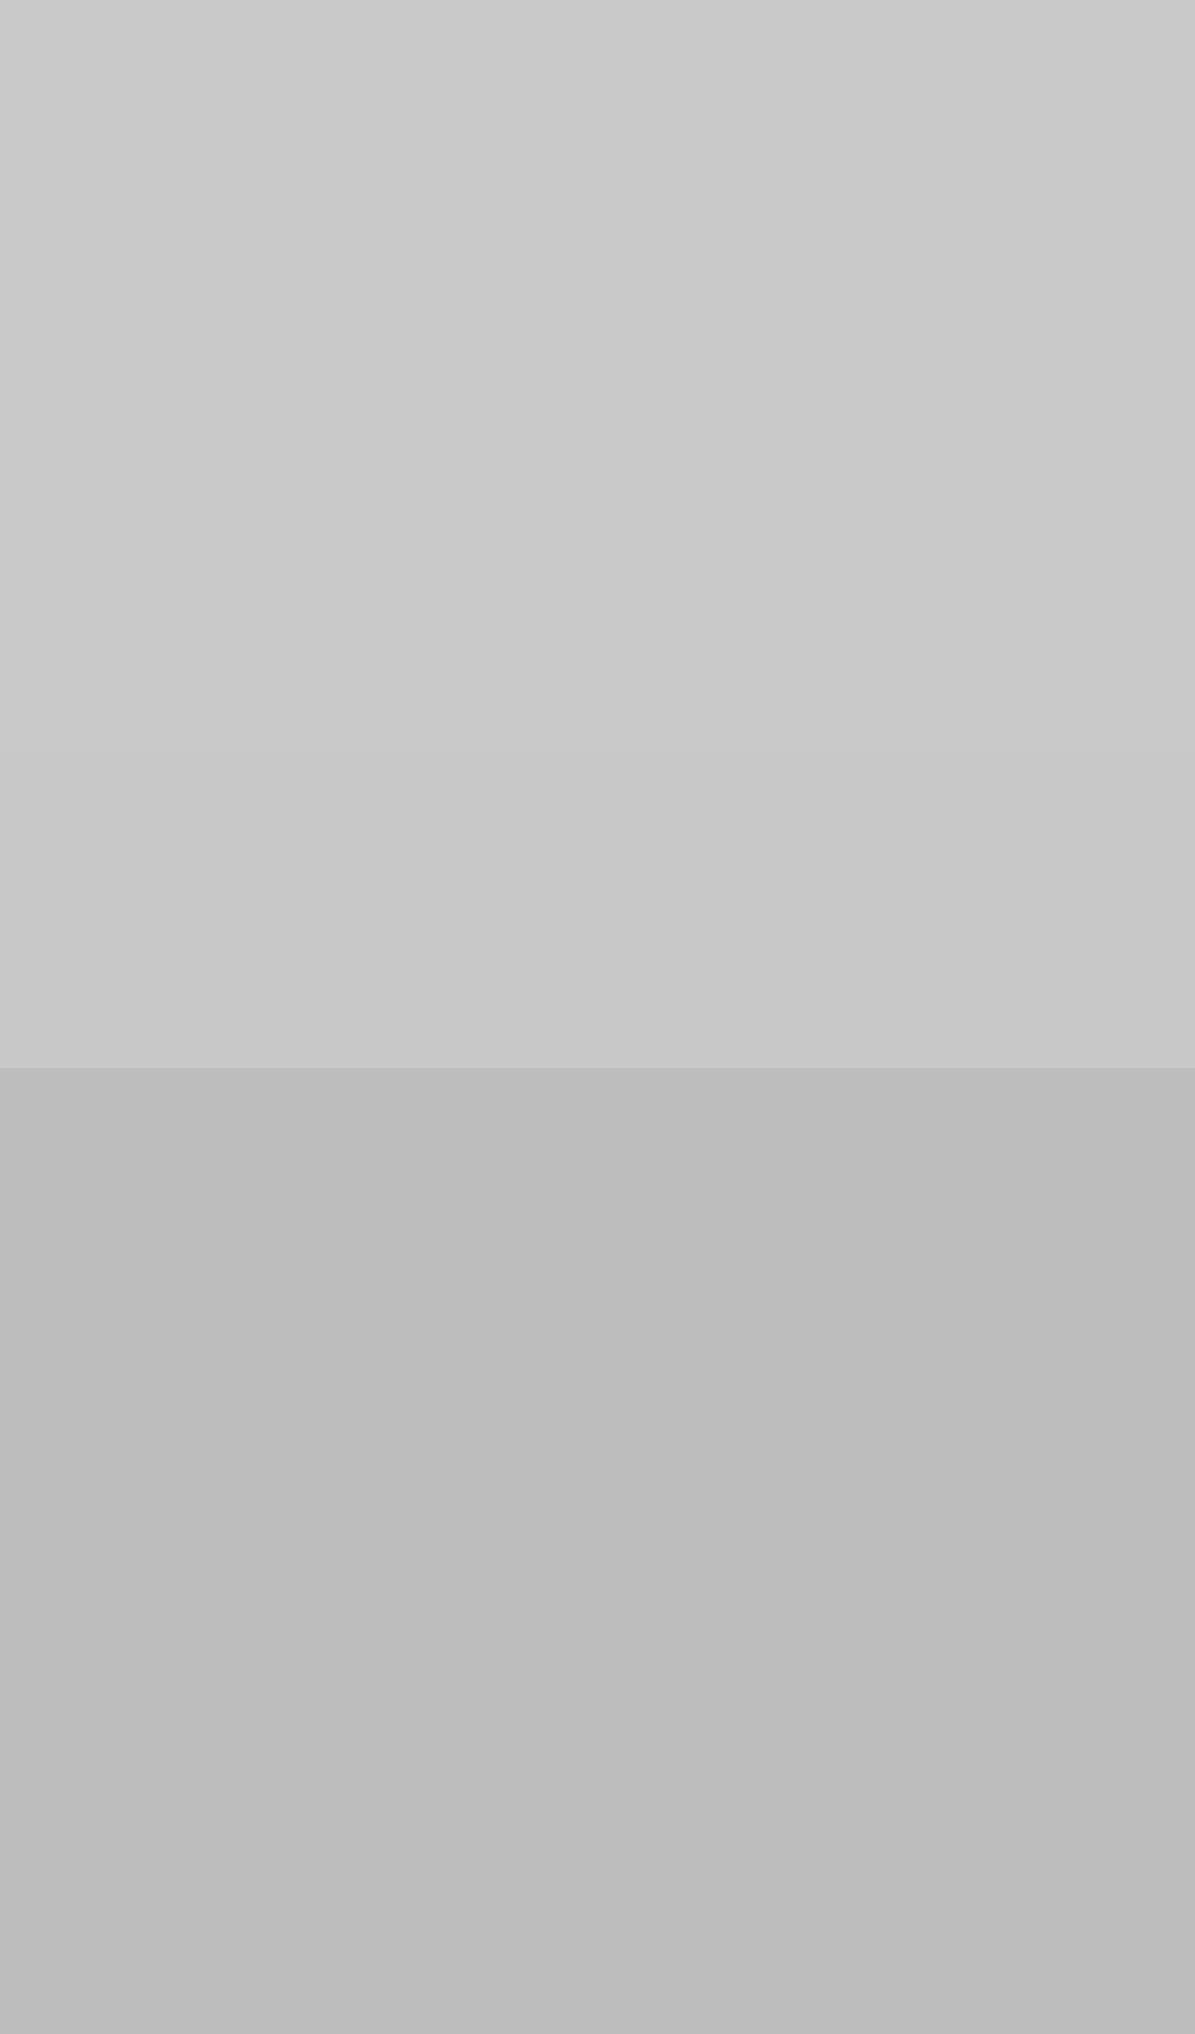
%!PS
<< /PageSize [1195 2034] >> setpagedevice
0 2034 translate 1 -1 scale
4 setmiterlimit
0.741 setgray
0 0 1195 2034 rectfill
0.788 setgray
0 0 1195 752 rectfill
0.784 setgray
0 752 1195 316 rectfill
showpage
